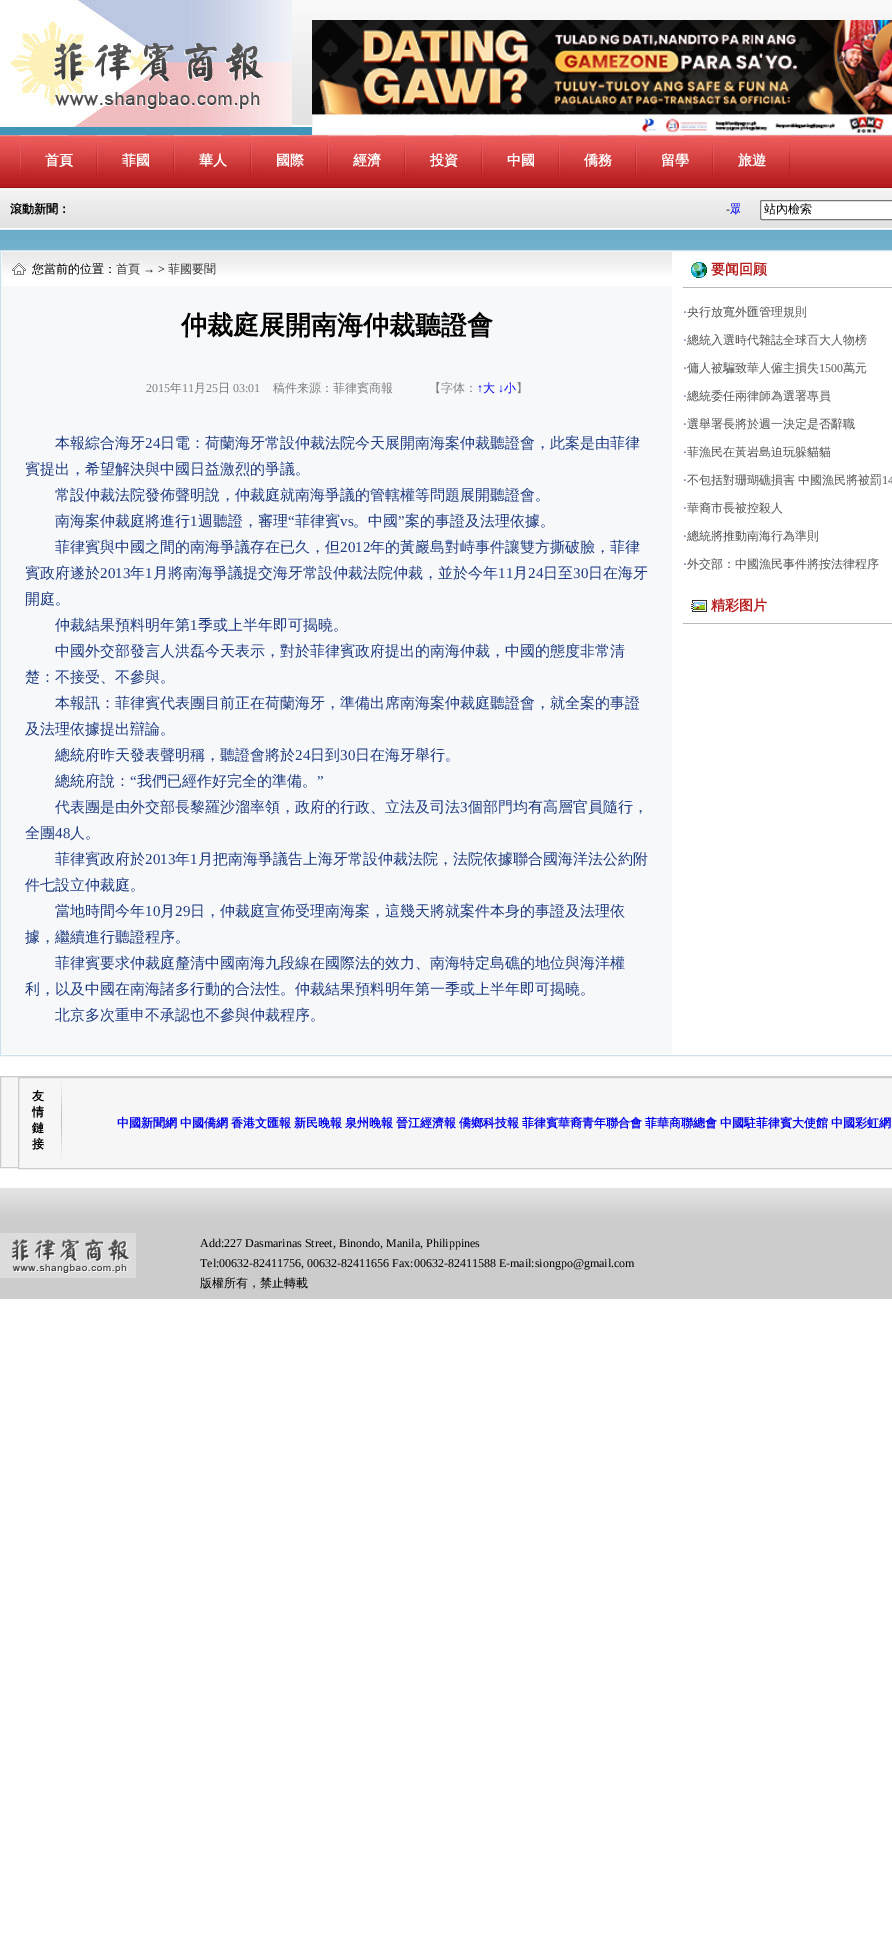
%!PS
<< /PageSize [892 1937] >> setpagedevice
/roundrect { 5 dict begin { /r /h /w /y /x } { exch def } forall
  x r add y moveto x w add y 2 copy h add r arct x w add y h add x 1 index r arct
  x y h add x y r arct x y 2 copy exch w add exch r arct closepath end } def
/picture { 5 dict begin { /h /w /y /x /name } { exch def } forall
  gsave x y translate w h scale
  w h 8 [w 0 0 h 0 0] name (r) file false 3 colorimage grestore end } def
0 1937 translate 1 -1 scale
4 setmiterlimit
1 setgray
0 0 892 1937 rectfill
(img1.rgb) 0 127 892 123 picture
(img2.rgb) 292 0 600 127 picture
(img3.rgb) 0 0 292 127 picture
(img4.rgb) 312 20 580 115 picture
(img5.rgb) 0 135 892 53 picture
(img6.rgb) 20 135 77 40 picture
/WenQuanYiZenHei-Bold [14 0 0 -14 0 0] selectfont
45 165 moveto (首頁) show
(img6.rgb) 97 135 77 40 picture
122 165 moveto (菲國) show
(img6.rgb) 174 135 77 40 picture
199 165 moveto (華人) show
(img6.rgb) 251 135 77 40 picture
276 165 moveto (國際) show
(img6.rgb) 328 135 77 40 picture
353 165 moveto (經濟) show
(img6.rgb) 405 135 77 40 picture
430 165 moveto (投資) show
(img6.rgb) 482 135 77 40 picture
507 165 moveto (中國) show
(img6.rgb) 559 135 77 40 picture
584 165 moveto (僑務) show
(img6.rgb) 636 135 77 40 picture
661 165 moveto (留學) show
(img6.rgb) 713 135 77 40 picture
738 165 moveto (旅遊) show
(img7.rgb) 0 188 892 42 picture
/WenQuanYiZenHei-Bold [12 0 0 -12 0 0] selectfont
0 setgray
10 213 moveto (滾動新聞：) show
/LiberationSerif-Regular [12 0 0 -12 0 0] selectfont
726 213 moveto (-) show
gsave
80 188 660 42 rectclip
/WenQuanYiZenHei-Medium [12 0 0 -12 0 0] selectfont
0 0 0.933 setrgbcolor
730 213 moveto -1 0 32 (眾) widthshow
grestore
1 setgray
760.5 200.5 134 19 1.5 roundrect gsave fill grestore
0.463 setgray
stroke
/WenQuanYiZenHei-Medium [12 0 0 -12 0 0] selectfont
0 setgray
764 213 moveto (站內檢索) show
0.8 0.89 0.925 setrgbcolor
0.5 250.5 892 805 rectstroke
0.969 0.973 0.98 setrgbcolor
2 286 670 768 rectfill
(img8.rgb) 2 252 670 34 picture
(img9.rgb) 12 263 14 12 picture
0 setgray
32 273 moveto (您當前的位置：) show
0.2 setgray
116 273 moveto (首頁) show
/LiberationSerif-Regular [12 0 0 -12 0 0] selectfont
0 setgray
143 273 moveto (→ >) show
/WenQuanYiZenHei-Medium [12 0 0 -12 0 0] selectfont
0.2 setgray
168 273 moveto (菲國要聞) show
/WenQuanYiZenHei-Bold [26 0 0 -26 0 0] selectfont
0 setgray
181 334 moveto (仲裁庭展開南海仲裁聽證會) show
/LiberationSerif-Regular [12 0 0 -12 0 0] selectfont
0.49 setgray
146 392 moveto (2015) show
/WenQuanYiZenHei-Medium [12 0 0 -12 0 0] selectfont
170 392 moveto (年) show
/LiberationSerif-Regular [12 0 0 -12 0 0] selectfont
182 392 moveto (11) show
/WenQuanYiZenHei-Medium [12 0 0 -12 0 0] selectfont
194 392 moveto (月) show
/LiberationSerif-Regular [12 0 0 -12 0 0] selectfont
206 392 moveto (25) show
/WenQuanYiZenHei-Medium [12 0 0 -12 0 0] selectfont
218 392 moveto (日) show
/LiberationSerif-Regular [12 0 0 -12 0 0] selectfont
233 392 moveto (03:01) show
/WenQuanYiZenHei-Medium [12 0 0 -12 0 0] selectfont
273 392 moveto (稿件来源：菲律賓商報　　　【字体：) show
/LiberationSerif-Regular [12 0 0 -12 0 0] selectfont
0 0 0.933 setrgbcolor
477 392 moveto (↑) show
/WenQuanYiZenHei-Medium [12 0 0 -12 0 0] selectfont
483 392 moveto (大) show
/LiberationSerif-Regular [12 0 0 -12 0 0] selectfont
498 392 moveto (↓) show
/WenQuanYiZenHei-Medium [12 0 0 -12 0 0] selectfont
504 392 moveto (小) show
0.49 setgray
516 392 moveto (】) show
/WenQuanYiZenHei-Medium [15 0 0 -15 0 0] selectfont
0.122 0.235 0.51 setrgbcolor
55 448 moveto (本報綜合海牙) show
/LiberationSerif-Regular [15 0 0 -15 0 0] selectfont
145 448 moveto (24) show
/WenQuanYiZenHei-Medium [15 0 0 -15 0 0] selectfont
160 448 moveto (日電：荷蘭海牙常設仲裁法院今天展開南海案仲裁聽證會，此案是由菲律) show
25 474 moveto (賓提出，希望解決與中國日益激烈的爭議。) show
55 500 moveto (常設仲裁法院發佈聲明說，仲裁庭就南海爭議的管轄權等問題展開聽證會。) show
55 526 moveto (南海案仲裁庭將進行) show
/LiberationSerif-Regular [15 0 0 -15 0 0] selectfont
190 526 moveto (1) show
/WenQuanYiZenHei-Medium [15 0 0 -15 0 0] selectfont
198 526 moveto (週聽證，審理) show
/LiberationSerif-Regular [15 0 0 -15 0 0] selectfont
288 526 moveto (“) show
/WenQuanYiZenHei-Medium [15 0 0 -15 0 0] selectfont
295 526 moveto (菲律賓) show
/LiberationSerif-Regular [15 0 0 -15 0 0] selectfont
340 526 moveto (vs) show
/WenQuanYiZenHei-Medium [15 0 0 -15 0 0] selectfont
353 526 moveto (。中國) show
/LiberationSerif-Regular [15 0 0 -15 0 0] selectfont
398 526 moveto (”) show
/WenQuanYiZenHei-Medium [15 0 0 -15 0 0] selectfont
405 526 moveto (案的事證及法理依據。) show
55 552 moveto (菲律賓與中國之間的南海爭議存在已久，但) show
/LiberationSerif-Regular [15 0 0 -15 0 0] selectfont
340 552 moveto (2012) show
/WenQuanYiZenHei-Medium [15 0 0 -15 0 0] selectfont
370 552 moveto (年的黃巖島對峙事件讓雙方撕破臉，菲律) show
25 578 moveto (賓政府遂於) show
/LiberationSerif-Regular [15 0 0 -15 0 0] selectfont
100 578 moveto (2013) show
/WenQuanYiZenHei-Medium [15 0 0 -15 0 0] selectfont
130 578 moveto (年) show
/LiberationSerif-Regular [15 0 0 -15 0 0] selectfont
145 578 moveto (1) show
/WenQuanYiZenHei-Medium [15 0 0 -15 0 0] selectfont
153 578 moveto (月將南海爭議提交海牙常設仲裁法院仲裁，並於今年) show
/LiberationSerif-Regular [15 0 0 -15 0 0] selectfont
498 578 moveto (11) show
/WenQuanYiZenHei-Medium [15 0 0 -15 0 0] selectfont
513 578 moveto (月) show
/LiberationSerif-Regular [15 0 0 -15 0 0] selectfont
528 578 moveto (24) show
/WenQuanYiZenHei-Medium [15 0 0 -15 0 0] selectfont
543 578 moveto (日至) show
/LiberationSerif-Regular [15 0 0 -15 0 0] selectfont
573 578 moveto (30) show
/WenQuanYiZenHei-Medium [15 0 0 -15 0 0] selectfont
588 578 moveto (日在海牙) show
25 604 moveto (開庭。) show
55 630 moveto (仲裁結果預料明年第) show
/LiberationSerif-Regular [15 0 0 -15 0 0] selectfont
190 630 moveto (1) show
/WenQuanYiZenHei-Medium [15 0 0 -15 0 0] selectfont
198 630 moveto (季或上半年即可揭曉。) show
55 656 moveto (中國外交部發言人洪磊今天表示，對於菲律賓政府提出的南海仲裁，中國的態度非常清) show
25 682 moveto (楚：不接受、不參與。) show
55 708 moveto (本報訊：菲律賓代表團目前正在荷蘭海牙，準備出席南海案仲裁庭聽證會，就全案的事證) show
25 734 moveto (及法理依據提出辯論。) show
55 760 moveto (總統府昨天發表聲明稱，聽證會將於) show
/LiberationSerif-Regular [15 0 0 -15 0 0] selectfont
295 760 moveto (24) show
/WenQuanYiZenHei-Medium [15 0 0 -15 0 0] selectfont
310 760 moveto (日到) show
/LiberationSerif-Regular [15 0 0 -15 0 0] selectfont
340 760 moveto (30) show
/WenQuanYiZenHei-Medium [15 0 0 -15 0 0] selectfont
355 760 moveto (日在海牙舉行。) show
55 786 moveto (總統府說：) show
/LiberationSerif-Regular [15 0 0 -15 0 0] selectfont
130 786 moveto (“) show
/WenQuanYiZenHei-Medium [15 0 0 -15 0 0] selectfont
137 786 moveto (我們已經作好完全的準備。) show
/LiberationSerif-Regular [15 0 0 -15 0 0] selectfont
317 786 moveto (”) show
/WenQuanYiZenHei-Medium [15 0 0 -15 0 0] selectfont
55 812 moveto (代表團是由外交部長黎羅沙溜率領，政府的行政、立法及司法) show
/LiberationSerif-Regular [15 0 0 -15 0 0] selectfont
460 812 moveto (3) show
/WenQuanYiZenHei-Medium [15 0 0 -15 0 0] selectfont
468 812 moveto (個部門均有高層官員隨行，) show
25 838 moveto (全團) show
/LiberationSerif-Regular [15 0 0 -15 0 0] selectfont
55 838 moveto (48) show
/WenQuanYiZenHei-Medium [15 0 0 -15 0 0] selectfont
70 838 moveto (人。) show
55 864 moveto (菲律賓政府於) show
/LiberationSerif-Regular [15 0 0 -15 0 0] selectfont
145 864 moveto (2013) show
/WenQuanYiZenHei-Medium [15 0 0 -15 0 0] selectfont
175 864 moveto (年) show
/LiberationSerif-Regular [15 0 0 -15 0 0] selectfont
190 864 moveto (1) show
/WenQuanYiZenHei-Medium [15 0 0 -15 0 0] selectfont
198 864 moveto (月把南海爭議告上海牙常設仲裁法院，法院依據聯合國海洋法公約附) show
25 890 moveto (件七設立仲裁庭。) show
55 916 moveto (當地時間今年) show
/LiberationSerif-Regular [15 0 0 -15 0 0] selectfont
145 916 moveto (10) show
/WenQuanYiZenHei-Medium [15 0 0 -15 0 0] selectfont
160 916 moveto (月) show
/LiberationSerif-Regular [15 0 0 -15 0 0] selectfont
175 916 moveto (29) show
/WenQuanYiZenHei-Medium [15 0 0 -15 0 0] selectfont
190 916 moveto (日，仲裁庭宣佈受理南海案，這幾天將就案件本身的事證及法理依) show
25 942 moveto (據，繼續進行聽證程序。) show
55 968 moveto (菲律賓要求仲裁庭釐清中國南海九段線在國際法的效力、南海特定島礁的地位與海洋權) show
25 994 moveto (利，以及中國在南海諸多行動的合法性。仲裁結果預料明年第一季或上半年即可揭曉。) show
55 1020 moveto (北京多次重申不承認也不參與仲裁程序。) show
(img10.rgb) 691 261 16 17 picture
/WenQuanYiZenHei-Bold [14 0 0 -14 0 0] selectfont
0.718 0.118 0.118 setrgbcolor
711 274 moveto (要闻回顾) show
0.718 setgray
683 287 209 1 rectfill
/LiberationSerif-Regular [12 0 0 -12 0 0] selectfont
0.122 0.235 0.51 setrgbcolor
683 316 moveto (·) show
/WenQuanYiZenHei-Medium [12 0 0 -12 0 0] selectfont
0.325 setgray
687 316 moveto (央行放寬外匯管理規則) show
/LiberationSerif-Regular [12 0 0 -12 0 0] selectfont
0.122 0.235 0.51 setrgbcolor
683 344 moveto (·) show
/WenQuanYiZenHei-Medium [12 0 0 -12 0 0] selectfont
0.325 setgray
687 344 moveto (總統入選時代雜誌全球百大人物榜) show
/LiberationSerif-Regular [12 0 0 -12 0 0] selectfont
0.122 0.235 0.51 setrgbcolor
683 372 moveto (·) show
/WenQuanYiZenHei-Medium [12 0 0 -12 0 0] selectfont
0.325 setgray
687 372 moveto (傭人被騙致華人僱主損失) show
/LiberationSerif-Regular [12 0 0 -12 0 0] selectfont
819 372 moveto (1500) show
/WenQuanYiZenHei-Medium [12 0 0 -12 0 0] selectfont
843 372 moveto (萬元) show
/LiberationSerif-Regular [12 0 0 -12 0 0] selectfont
0.122 0.235 0.51 setrgbcolor
683 400 moveto (·) show
/WenQuanYiZenHei-Medium [12 0 0 -12 0 0] selectfont
0.325 setgray
687 400 moveto (總統委任兩律師為選署專員) show
/LiberationSerif-Regular [12 0 0 -12 0 0] selectfont
0.122 0.235 0.51 setrgbcolor
683 428 moveto (·) show
/WenQuanYiZenHei-Medium [12 0 0 -12 0 0] selectfont
0.325 setgray
687 428 moveto (選舉署長將於週一決定是否辭職) show
/LiberationSerif-Regular [12 0 0 -12 0 0] selectfont
0.122 0.235 0.51 setrgbcolor
683 456 moveto (·) show
/WenQuanYiZenHei-Medium [12 0 0 -12 0 0] selectfont
0.325 setgray
687 456 moveto (菲漁民在黃岩島迫玩躲貓貓) show
/LiberationSerif-Regular [12 0 0 -12 0 0] selectfont
0.122 0.235 0.51 setrgbcolor
683 484 moveto (·) show
/WenQuanYiZenHei-Medium [12 0 0 -12 0 0] selectfont
0.325 setgray
687 484 moveto -1 0 32 (不包括對珊瑚礁損害 中國漁民將被罰) widthshow
/LiberationSerif-Regular [12 0 0 -12 0 0] selectfont
882 484 moveto (14) show
0.122 0.235 0.51 setrgbcolor
683 512 moveto (·) show
/WenQuanYiZenHei-Medium [12 0 0 -12 0 0] selectfont
0.325 setgray
687 512 moveto (華裔市長被控殺人) show
/LiberationSerif-Regular [12 0 0 -12 0 0] selectfont
0.122 0.235 0.51 setrgbcolor
683 540 moveto (·) show
/WenQuanYiZenHei-Medium [12 0 0 -12 0 0] selectfont
0.325 setgray
687 540 moveto (總統將推動南海行為準則) show
/LiberationSerif-Regular [12 0 0 -12 0 0] selectfont
0.122 0.235 0.51 setrgbcolor
683 568 moveto (·) show
/WenQuanYiZenHei-Medium [12 0 0 -12 0 0] selectfont
0.325 setgray
687 568 moveto (外交部：中國漁民事件將按法律程序) show
(img11.rgb) 691 599 16 14 picture
/WenQuanYiZenHei-Bold [14 0 0 -14 0 0] selectfont
0.718 0.118 0.118 setrgbcolor
711 610 moveto (精彩图片) show
0.718 setgray
683 623 209 1 rectfill
0.965 setgray
1 1077 17 90 rectfill
0.8 setgray
0.5 1076.5 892 91 rectstroke
0.965 setgray
newpath 18.5 1077.5 moveto 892.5 1077.5 lineto 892.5 1168.5 lineto 18.5 1168.5 lineto closepath gsave fill grestore
0.8 setgray
stroke
(img12.rgb) 61 1080 1 79 picture
/WenQuanYiZenHei-Bold [12 0 0 -12 0 0] selectfont
0 setgray
32 1100 moveto (友) show
32 1116 moveto (情) show
32 1132 moveto (鏈) show
32 1148 moveto (接) show
0 0 0.933 setrgbcolor
117 1127 moveto (中國新聞網) show
180 1127 moveto (中國僑網) show
231 1127 moveto (香港文匯報) show
294 1127 moveto (新民晚報) show
345 1127 moveto (泉州晚報) show
396 1127 moveto (晉江經濟報) show
459 1127 moveto (僑鄉科技報) show
522 1127 moveto (菲律賓華裔青年聯合會) show
645 1127 moveto (菲華商聯總會) show
720 1127 moveto (中國駐菲律賓大使館) show
831 1127 moveto (中國彩虹網) show
(img13.rgb) 0 1188 892 111 picture
(img14.rgb) 0 1233 136 45 picture
/LiberationSerif-Regular [12 0 0 -12 0 0] selectfont
0 setgray
200 1247 moveto (Add:227 Dasmarinas Street, Binondo, Manila, Philippines) show
200 1267 moveto (Tel:00632-82411756, 00632-82411656 Fax:00632-82411588 E-mail:siongpo@gmail.com) show
/WenQuanYiZenHei-Medium [12 0 0 -12 0 0] selectfont
200 1287 moveto (版權所有，禁止轉載) show
showpage
